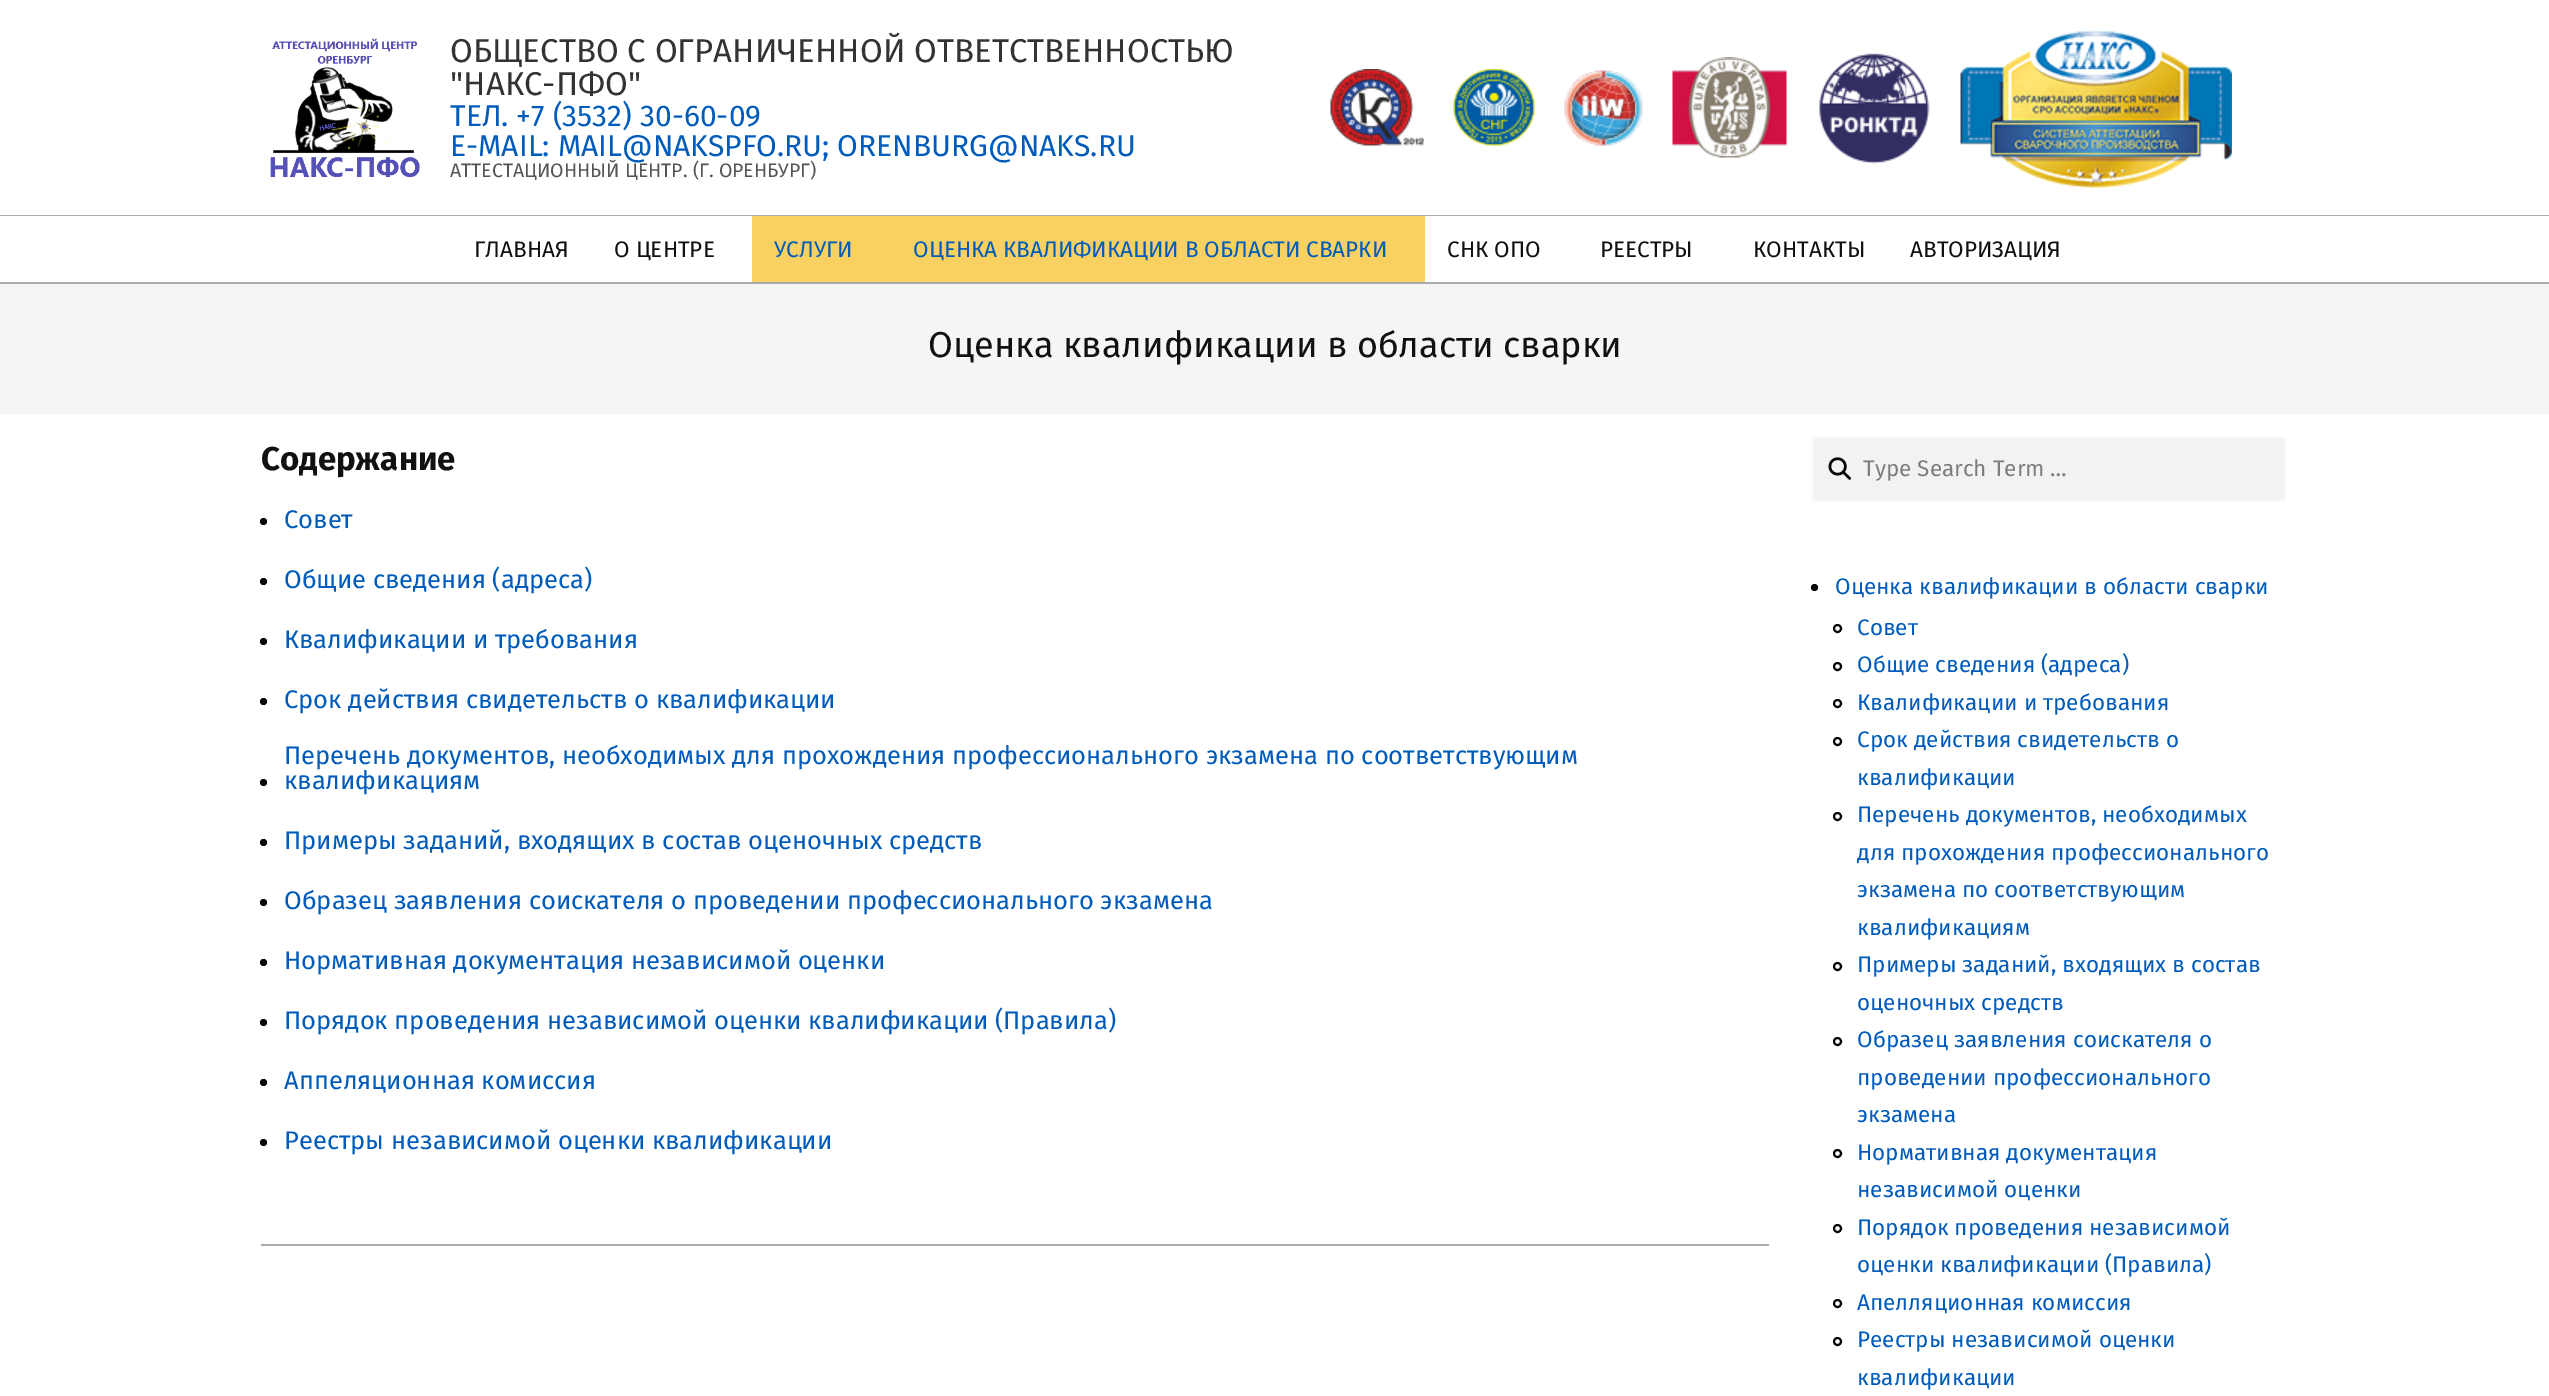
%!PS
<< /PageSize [2549 1396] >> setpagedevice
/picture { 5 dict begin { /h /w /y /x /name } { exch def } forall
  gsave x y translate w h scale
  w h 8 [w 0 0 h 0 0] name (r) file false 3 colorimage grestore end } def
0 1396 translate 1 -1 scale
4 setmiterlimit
1 setgray
0 0 2549 1396 rectfill
0.667 setgray
0 215 2549 1 rectfill
(img1.rgb) 270 38 150 139 picture
/FiraSans-Regular [33 0 0 -33 0 0] selectfont
0.2 setgray
450 62 moveto (ОБЩЕСТВО С ОГРАНИЧЕННОЙ ОТВЕТСТВЕННОСТЬЮ) show
450 95 moveto ("НАКС-ПФО") show
/FiraSans-Regular [30 0 0 -30 0 0] selectfont
0 0.357 0.733 setrgbcolor
450 126 moveto (ТЕЛ. +7 \(3532\) 30-60-09) show
450 156 moveto (E-MAIL: MAIL@NAKSPFO.RU; ORENBURG@NAKS.RU) show
/FiraSans-Regular [19.5 0 0 -19.5 0 0] selectfont
0.333 setgray
450 177 moveto (АТТЕСТАЦИОННЫЙ ЦЕНТР. \(Г. ОРЕНБУРГ\)) show
(img2.rgb) 1330 69 94 77 picture
(img3.rgb) 1453 69 82 77 picture
(img4.rgb) 1564 70 79 76 picture
(img5.rgb) 1672 57 115 101 picture
(img6.rgb) 1819 53 111 111 picture
(img7.rgb) 1960 30 272 158 picture
0.667 setgray
0 282 2549 2 rectfill
/FiraSans-Regular [22.5 0 0 -22.5 0 0] selectfont
0.067 setgray
474 257 moveto (ГЛАВНАЯ) show
614 257 moveto (О ЦЕНТРЕ) show
0.976 0.82 0.388 setrgbcolor
752 216 673 66 rectfill
0 0.357 0.733 setrgbcolor
774 257 moveto (УСЛУГИ) show
913 257 moveto (ОЦЕНКА КВАЛИФИКАЦИИ В ОБЛАСТИ СВАРКИ) show
0.067 setgray
1447 257 moveto (СНК ОПО) show
1600 257 moveto (РЕЕСТРЫ) show
1753 257 moveto (КОНТАКТЫ) show
1910 257 moveto (АВТОРИЗАЦИЯ) show
0.961 setgray
0 284 2549 130 rectfill
/FiraSans-Regular [36 0 0 -36 0 0] selectfont
0.067 setgray
928 357 moveto (Оценка квалификации в области сварки) show
0.667 setgray
261 1244 1508 2 rectfill
/FiraSans-Bold [33 0 0 -33 0 0] selectfont
0.067 setgray
261 470 moveto (Содержание) show
0.024 0.027 0.031 setrgbcolor
newpath 263.5 521.5 3.5 0 360 arc closepath fill
/FiraSans-Regular [25.5 0 0 -25.5 0 0] selectfont
0 0.357 0.733 setrgbcolor
284 528 moveto (Совет) show
0.024 0.027 0.031 setrgbcolor
newpath 263.5 581.5 3.5 0 360 arc closepath fill
0 0.357 0.733 setrgbcolor
284 588 moveto (Общие сведения \(адреса\)) show
0.024 0.027 0.031 setrgbcolor
newpath 263.5 641.5 3.5 0 360 arc closepath fill
0 0.357 0.733 setrgbcolor
284 648 moveto (Квалификации и требования) show
0.024 0.027 0.031 setrgbcolor
newpath 263.5 701.5 3.5 0 360 arc closepath fill
0 0.357 0.733 setrgbcolor
284 708 moveto (Срок действия свидетельств о квалификации) show
0.024 0.027 0.031 setrgbcolor
newpath 263.5 782.5 3.5 0 360 arc closepath fill
0 0.357 0.733 setrgbcolor
284 764 moveto (Перечень документов, необходимых для прохождения профессионального экзамена по соответствующим) show
284 789 moveto (квалификациям) show
0.024 0.027 0.031 setrgbcolor
newpath 263.5 842.5 3.5 0 360 arc closepath fill
0 0.357 0.733 setrgbcolor
284 849 moveto (Примеры заданий, входящих в состав оценочных средств) show
0.024 0.027 0.031 setrgbcolor
newpath 263.5 902.5 3.5 0 360 arc closepath fill
0 0.357 0.733 setrgbcolor
284 909 moveto (Образец заявления соискателя о проведении профессионального экзамена) show
0.024 0.027 0.031 setrgbcolor
newpath 263.5 962.5 3.5 0 360 arc closepath fill
0 0.357 0.733 setrgbcolor
284 969 moveto (Нормативная документация независимой оценки) show
0.024 0.027 0.031 setrgbcolor
newpath 263.5 1022.5 3.5 0 360 arc closepath fill
0 0.357 0.733 setrgbcolor
284 1029 moveto (Порядок проведения независимой оценки квалификации \(Правила\)) show
0.024 0.027 0.031 setrgbcolor
newpath 263.5 1082.5 3.5 0 360 arc closepath fill
0 0.357 0.733 setrgbcolor
284 1089 moveto (Аппеляционная комиссия) show
0.024 0.027 0.031 setrgbcolor
newpath 263.5 1142.5 3.5 0 360 arc closepath fill
0 0.357 0.733 setrgbcolor
284 1149 moveto (Реестры независимой оценки квалификации) show
0.949 setgray
newpath 1813 438 moveto 2284 438 lineto 2284 500 lineto 1813 500 lineto closepath gsave fill grestore
0.965 setgray
2 setlinewidth
stroke
(img8.rgb) 1828 457 23 23 picture
/FiraSans-Regular [22.5 0 0 -22.5 0 0] selectfont
0.486 0.49 0.49 setrgbcolor
1863 476 moveto (Type Search Term …) show
0.024 0.027 0.031 setrgbcolor
newpath 1814.5 587.5 3.5 0 360 arc closepath fill
0 0.357 0.733 setrgbcolor
1835 594 moveto (Оценка квалификации в области сварки) show
0.024 0.027 0.031 setrgbcolor
newpath 1837.5 628.5 3.5 0 360 arc closepath stroke
0 0.357 0.733 setrgbcolor
1857 635 moveto (Совет) show
0.024 0.027 0.031 setrgbcolor
newpath 1837.5 666.5 3.5 0 360 arc closepath stroke
0 0.357 0.733 setrgbcolor
1857 672 moveto (Общие сведения \(адреса\)) show
0.024 0.027 0.031 setrgbcolor
newpath 1837.5 703.5 3.5 0 360 arc closepath stroke
0 0.357 0.733 setrgbcolor
1857 710 moveto (Квалификации и требования) show
0.024 0.027 0.031 setrgbcolor
newpath 1837.5 741.5 3.5 0 360 arc closepath stroke
0 0.357 0.733 setrgbcolor
1857 747 moveto (Срок действия свидетельств о) show
1857 785 moveto (квалификации) show
0.024 0.027 0.031 setrgbcolor
newpath 1837.5 816.5 3.5 0 360 arc closepath stroke
0 0.357 0.733 setrgbcolor
1857 822 moveto (Перечень документов, необходимых) show
1857 860 moveto (для прохождения профессионального) show
1857 897 moveto (экзамена по соответствующим) show
1857 935 moveto (квалификациям) show
0.024 0.027 0.031 setrgbcolor
newpath 1837.5 966.5 3.5 0 360 arc closepath stroke
0 0.357 0.733 setrgbcolor
1857 972 moveto (Примеры заданий, входящих в состав) show
1857 1010 moveto (оценочных средств) show
0.024 0.027 0.031 setrgbcolor
newpath 1837.5 1041.5 3.5 0 360 arc closepath stroke
0 0.357 0.733 setrgbcolor
1857 1047 moveto (Образец заявления соискателя о) show
1857 1085 moveto (проведении профессионального) show
1857 1122 moveto (экзамена) show
0.024 0.027 0.031 setrgbcolor
newpath 1837.5 1153.5 3.5 0 360 arc closepath stroke
0 0.357 0.733 setrgbcolor
1857 1160 moveto (Нормативная документация) show
1857 1197 moveto (независимой оценки) show
0.024 0.027 0.031 setrgbcolor
newpath 1837.5 1228.5 3.5 0 360 arc closepath stroke
0 0.357 0.733 setrgbcolor
1857 1235 moveto (Порядок проведения независимой) show
1857 1272 moveto (оценки квалификации \(Правила\)) show
0.024 0.027 0.031 setrgbcolor
newpath 1837.5 1303.5 3.5 0 360 arc closepath stroke
0 0.357 0.733 setrgbcolor
1857 1310 moveto (Апелляционная комиссия) show
0.024 0.027 0.031 setrgbcolor
newpath 1837.5 1341.5 3.5 0 360 arc closepath stroke
0 0.357 0.733 setrgbcolor
1857 1347 moveto (Реестры независимой оценки) show
1857 1385 moveto (квалификации) show
showpage
